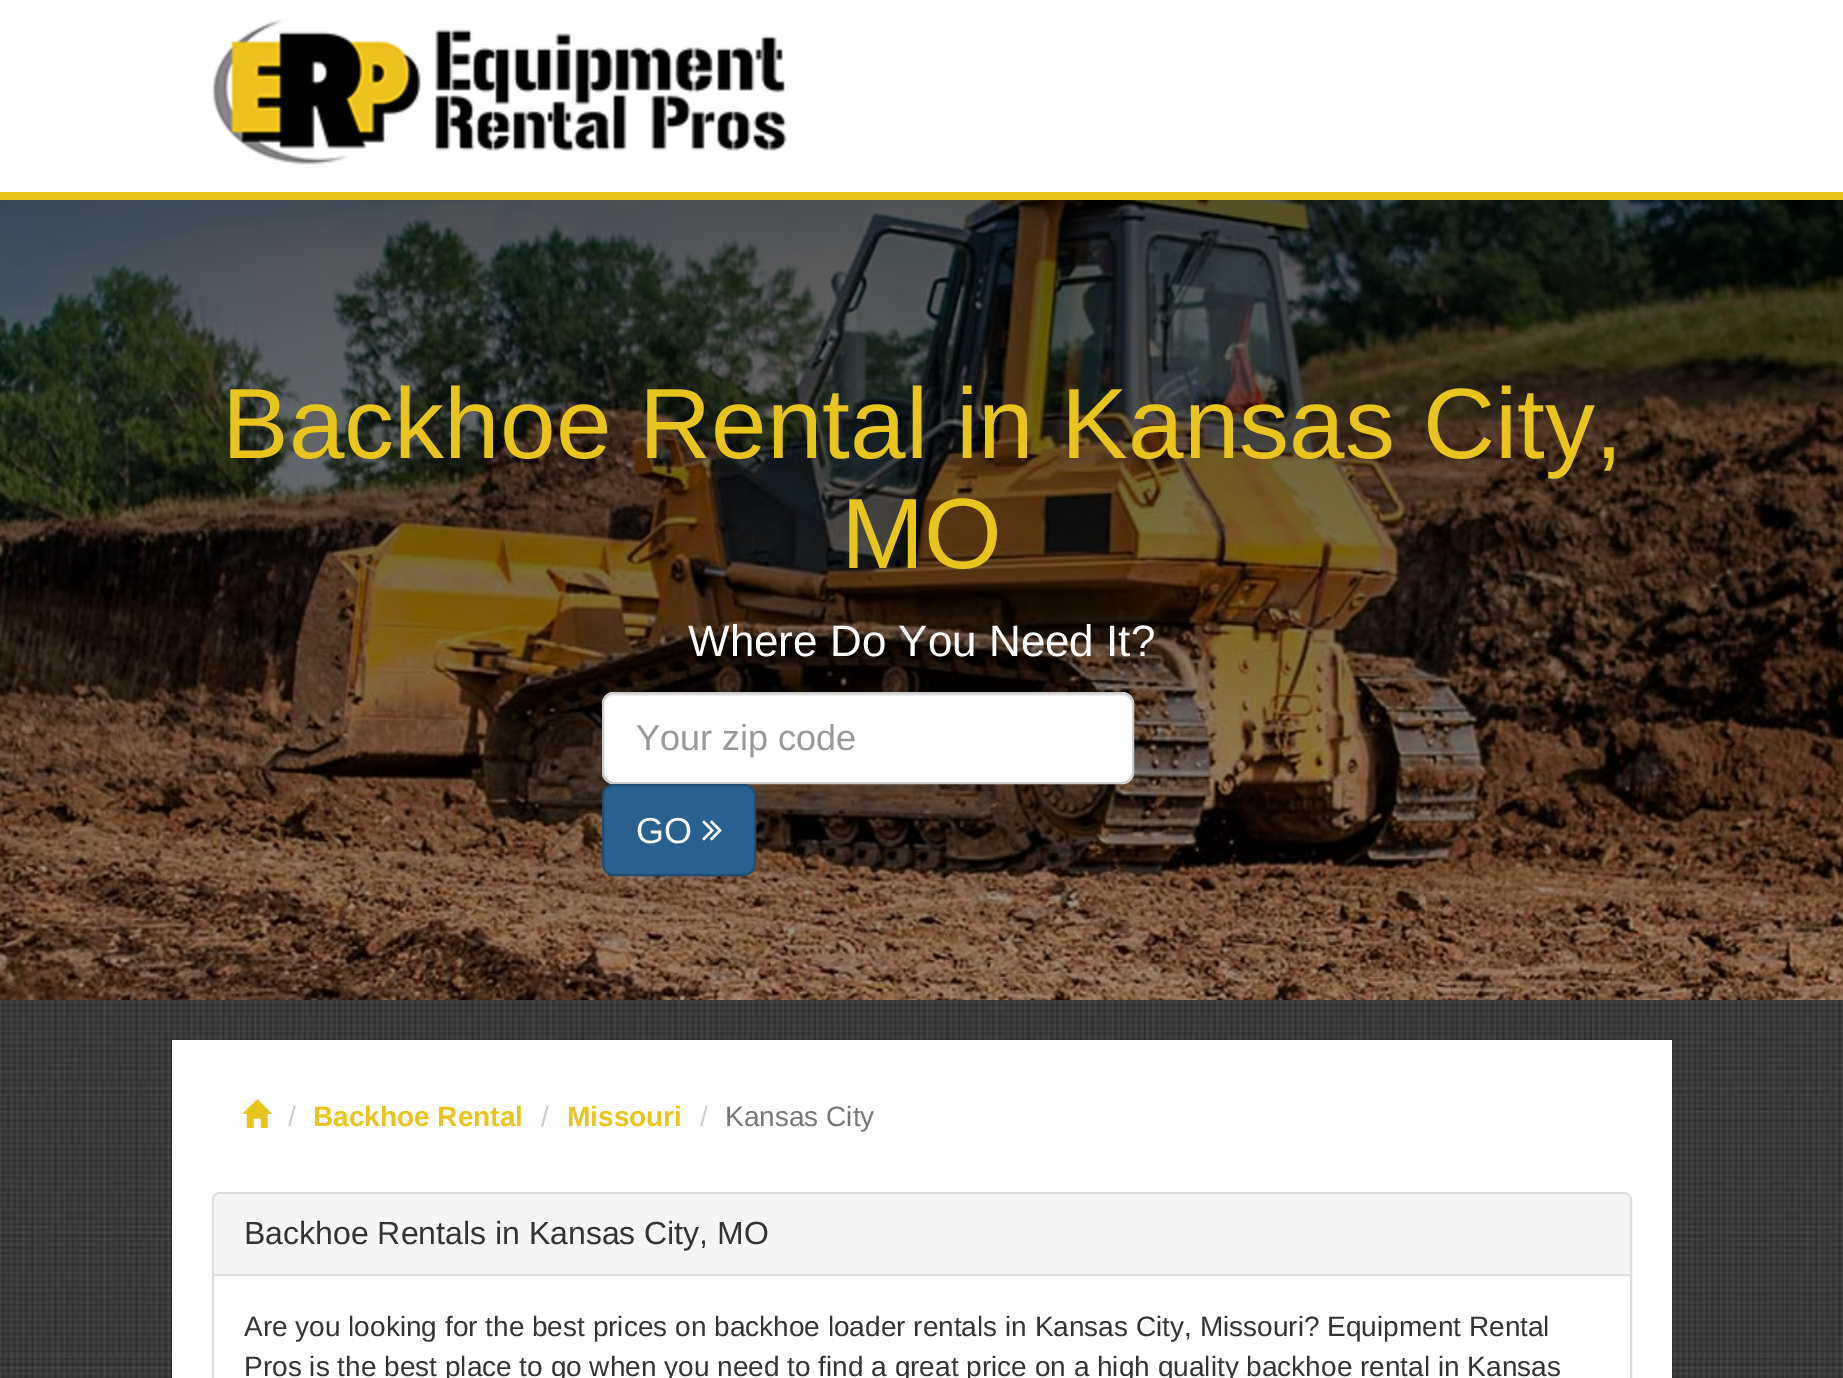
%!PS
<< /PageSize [1843 1378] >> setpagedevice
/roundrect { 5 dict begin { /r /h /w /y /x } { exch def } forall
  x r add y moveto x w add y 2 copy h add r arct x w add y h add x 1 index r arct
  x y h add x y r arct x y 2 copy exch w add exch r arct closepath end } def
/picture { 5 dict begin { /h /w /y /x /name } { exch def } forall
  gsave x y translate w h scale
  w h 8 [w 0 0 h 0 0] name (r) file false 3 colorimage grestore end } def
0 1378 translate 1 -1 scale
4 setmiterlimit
1 setgray
0 0 1843 1378 rectfill
(img1.rgb) 0 1000 1843 378 picture
0.914 0.769 0.114 setrgbcolor
0 192 1843 8 rectfill
(img2.rgb) 211 19 576 146 picture
(img3.rgb) 0 200 1843 800 picture
/LiberationSans-Regular [100 0 0 -100 0 0] selectfont
222 458 moveto (Backhoe Rental in Kansas City,) show
841 568 moveto (MO) show
/LiberationSans-Regular [44 0 0 -44 0 0] selectfont
1 setgray
688 656 moveto (Where Do You Need It?) show
602 692 532 92 12 roundrect fill
0.925 setgray
newpath 614 696 moveto 1122 696 lineto 1128 696 1132 700 1132 706 curveto 1132 700 1129 694 1122 694 curveto 614 694 lineto 607 694 604 700 604 706 curveto 604 700 608 696 614 696 curveto closepath fill
0.8 setgray
2 setlinewidth
603 693 530 90 11 roundrect stroke
/LiberationSans-Regular [36 0 0 -36 0 0] selectfont
0.6 setgray
636 750 moveto (Your zip code) show
0.157 0.376 0.565 setrgbcolor
603 785 152 90 11 roundrect gsave fill grestore
0.125 0.302 0.455 setrgbcolor
stroke
1 setgray
636 843 moveto (GO) show
(img4.rgb) 702 820 20 21 picture
172 1040 1500 338 rectfill
(img5.rgb) 242 1099 30 29 picture
/LiberationSans-Regular [28 0 0 -28 0 0] selectfont
0.8 setgray
288 1126 moveto (/) show
/LiberationSans-Bold [28 0 0 -28 0 0] selectfont
0.914 0.769 0.114 setrgbcolor
313 1126 moveto (Backhoe Rental) show
/LiberationSans-Regular [28 0 0 -28 0 0] selectfont
0.8 setgray
541 1126 moveto (/) show
/LiberationSans-Bold [28 0 0 -28 0 0] selectfont
0.914 0.769 0.114 setrgbcolor
567 1126 moveto (Missouri) show
/LiberationSans-Regular [28 0 0 -28 0 0] selectfont
0.8 setgray
700 1126 moveto (/) show
0.467 setgray
725 1126 moveto (Kansas City) show
0.867 setgray
213 1193 1418 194 7 roundrect stroke
0.961 setgray
newpath 220 1194 moveto 1624 1194 lineto 1627.5 1194 1630 1196.5 1630 1200 curveto 1630 1276 lineto 214 1276 lineto 214 1200 lineto 214 1196.5 216.5 1194 220 1194 curveto closepath fill
0.867 setgray
214 1274 1416 2 rectfill
/LiberationSans-Regular [32 0 0 -32 0 0] selectfont
0.2 setgray
244 1244 moveto (Backhoe Rentals in Kansas City, MO) show
/LiberationSans-Regular [28 0 0 -28 0 0] selectfont
244 1336 moveto (Are you looking for the best prices on backhoe loader rentals in Kansas City, Missouri? Equipment Rental) show
244 1376 moveto (Pros is the best place to go when you need to find a great price on a high quality backhoe rental in Kansas) show
showpage
